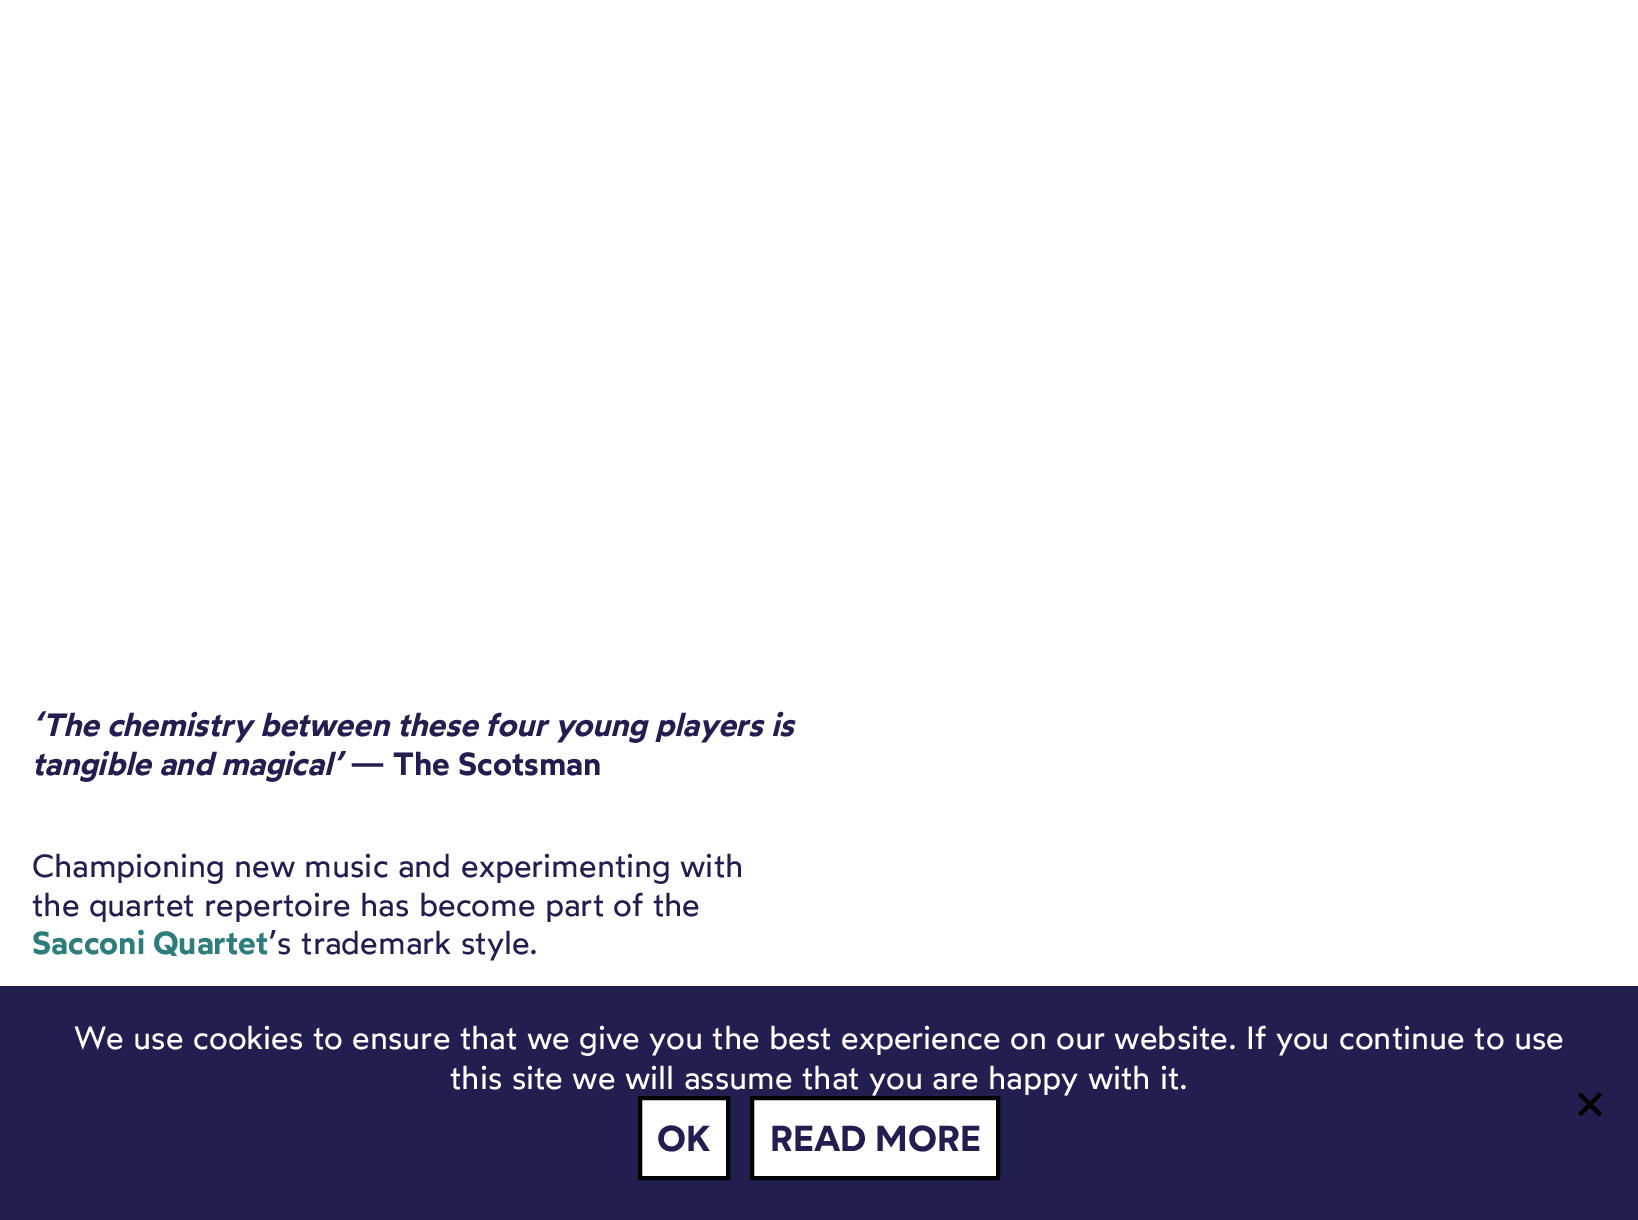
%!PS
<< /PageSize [1638 1220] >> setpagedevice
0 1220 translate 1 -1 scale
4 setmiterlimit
1 setgray
0 0 1638 1220 rectfill
/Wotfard-SemiBoldItalic [32 0 0 -32 0 0] selectfont
0.137 0.118 0.314 setrgbcolor
32 736 moveto (‘The chemistry between these four young players is) show
32 775 moveto (tangible and magical’) show
/Wotfard-SemiBold [32 0 0 -32 0 0] selectfont
350 775 moveto (— The Scotsman) show
/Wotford-Regular [32 0 0 -32 0 0] selectfont
32 877 moveto (Championing new music and experimenting with) show
32 916 moveto (the quartet repertoire has become part of the) show
/Wotfard-SemiBold [32 0 0 -32 0 0] selectfont
0.176 0.49 0.49 setrgbcolor
32 954 moveto (Sacconi Quartet) show
/Wotford-Regular [32 0 0 -32 0 0] selectfont
0.137 0.118 0.314 setrgbcolor
268 954 moveto (’s trademark style.) show
0 986 1638 234 rectfill
1 setgray
74 1049 moveto (We use cookies to ensure that we give you the best experience on our website. If you continue to use) show
450 1089 moveto (this site we will assume that you are happy with it.) show
0 setgray
newpath 1599 1092.5 moveto 1602 1095 lineto 1581 1116.5 lineto 1578 1113.5 lineto closepath fill
newpath 1578 1095 moveto 1581 1092.5 lineto 1602 1113.5 lineto 1599 1116.5 lineto closepath fill
1 setgray
newpath 640 1098 moveto 728 1098 lineto 728 1178 lineto 640 1178 lineto closepath gsave fill grestore
0 setgray
4 setlinewidth
stroke
/Wotfard-SemiBold [36 0 0 -36 0 0] selectfont
0.137 0.118 0.314 setrgbcolor
657 1151 moveto (OK) show
1 setgray
newpath 752 1098 moveto 998 1098 lineto 998 1178 lineto 752 1178 lineto closepath gsave fill grestore
0 setgray
stroke
0.137 0.118 0.314 setrgbcolor
770 1151 moveto (READ MORE) show
showpage
